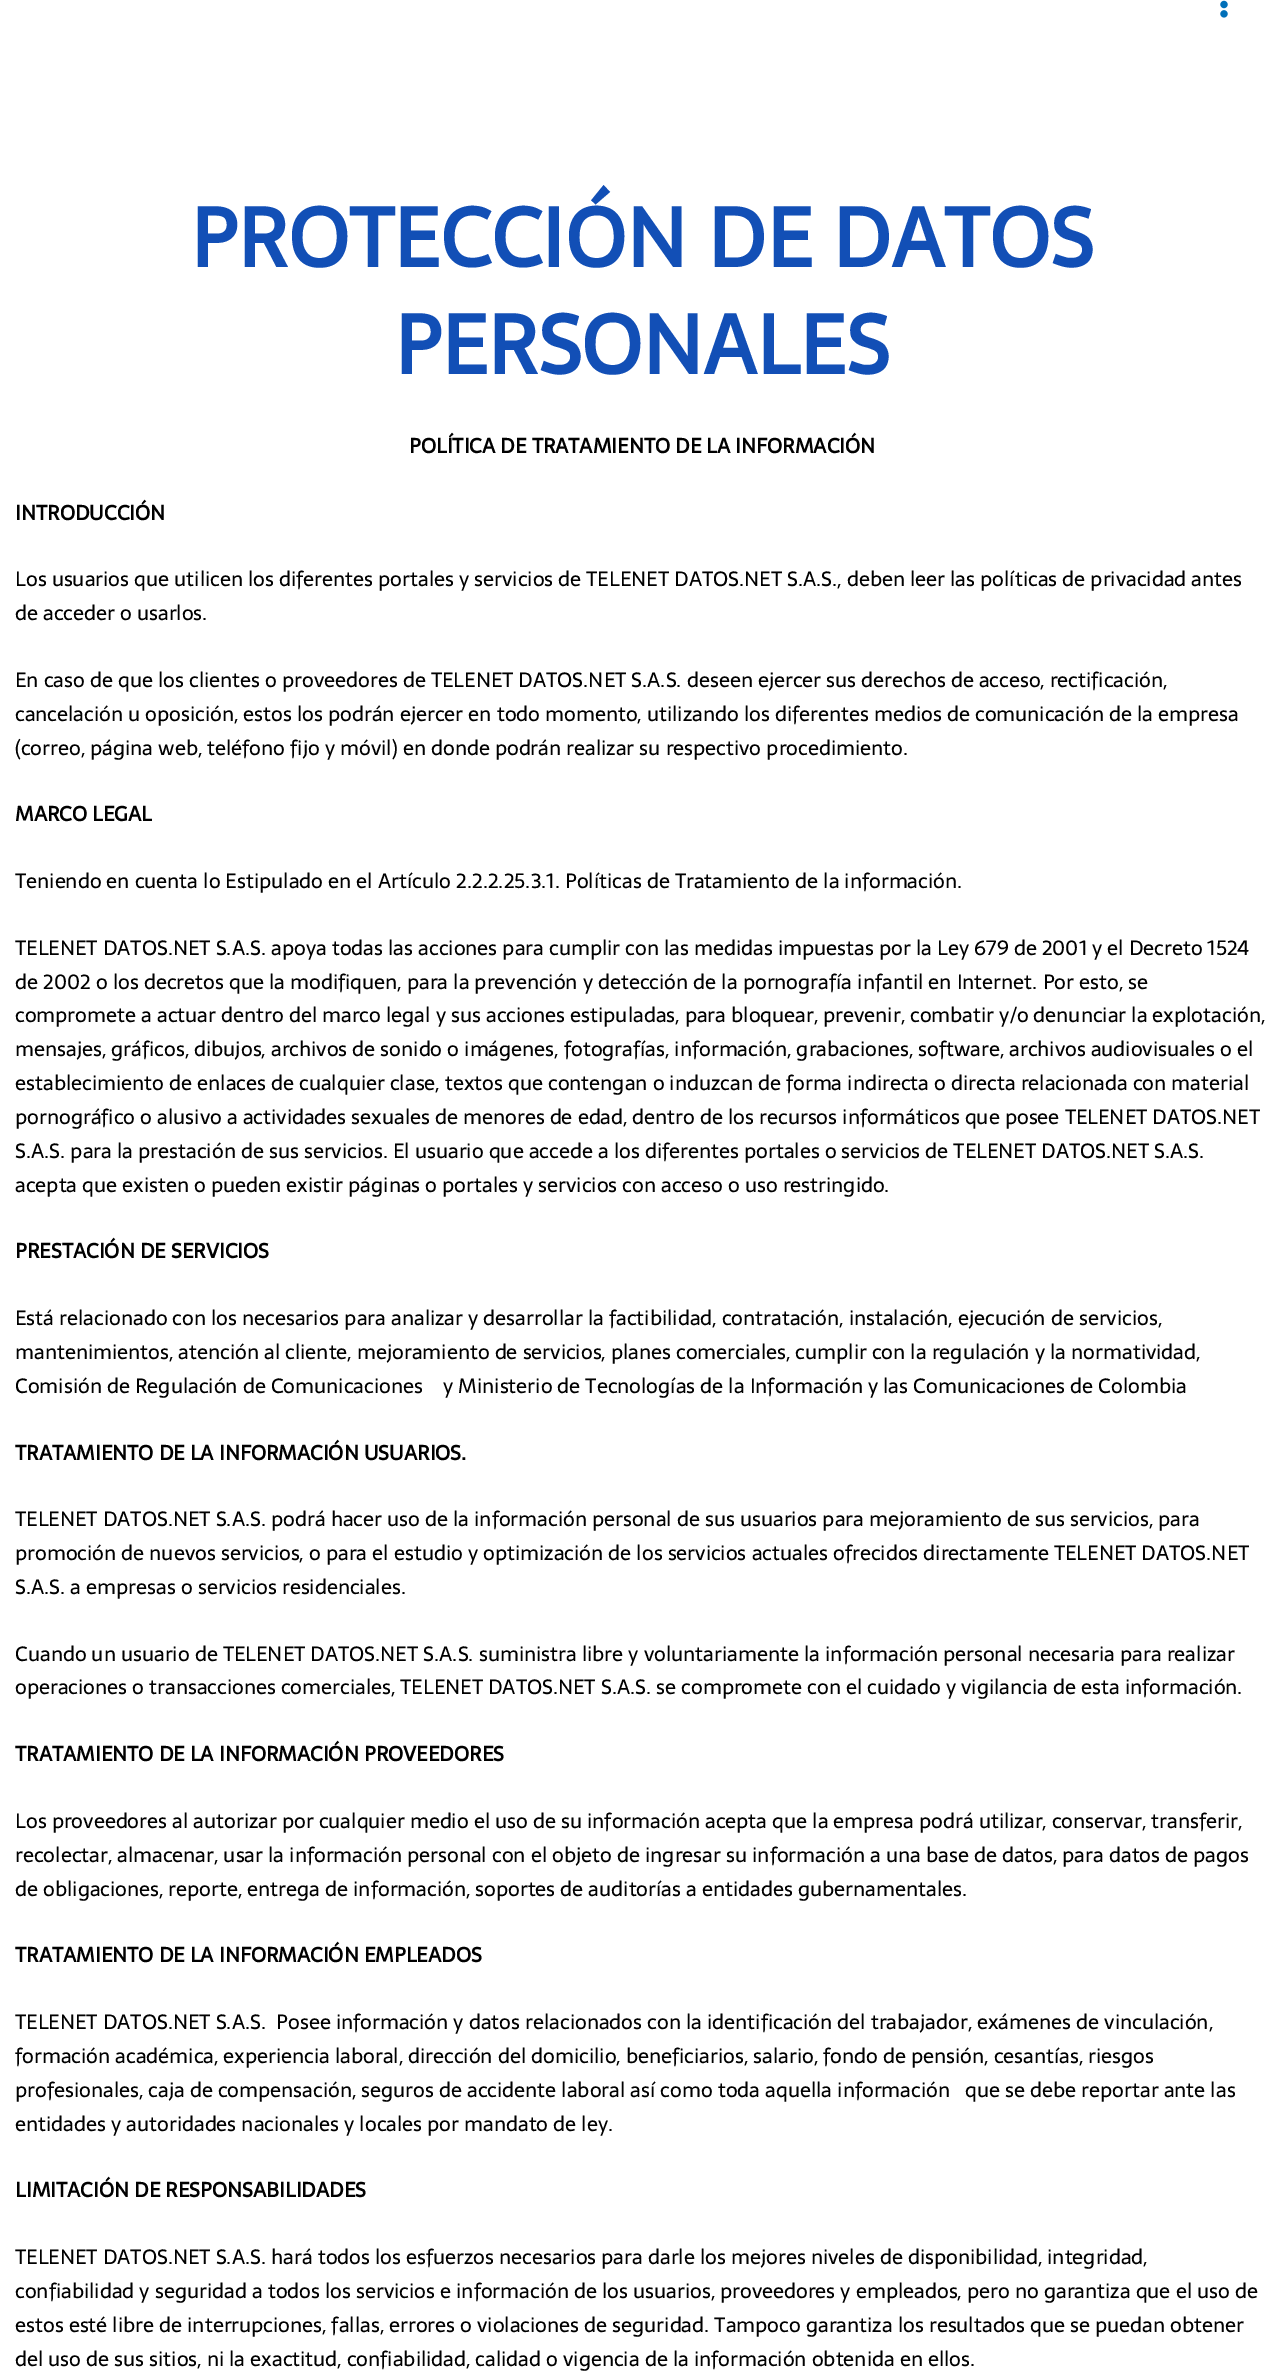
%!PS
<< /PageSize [1283 2376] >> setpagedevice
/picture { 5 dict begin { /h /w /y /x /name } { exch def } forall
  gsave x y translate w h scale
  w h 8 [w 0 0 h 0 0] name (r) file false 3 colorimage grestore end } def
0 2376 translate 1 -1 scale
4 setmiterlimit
1 setgray
0 0 1283 2376 rectfill
(img1.rgb) 1220 0 8 18 picture
/Sarala-Bold [82.5 0 0 -82.5 0 0] selectfont
0.071 0.31 0.714 setrgbcolor
190 267 moveto (PROTECCIÓN DE DATOS) show
394 374 moveto (PERSONALES) show
/Sarala-Bold [20.52 0 0 -20.52 0 0] selectfont
0 setgray
409 453 moveto (POLÍTICA DE TRATAMIENTO DE LA INFORMACIÓN) show
15 520 moveto (INTRODUCCIÓN) show
/Sarala-Regular [20.52 0 0 -20.52 0 0] selectfont
15 586 moveto (Los usuarios que utilicen los diferentes portales y servicios de TELENET DATOS.NET S.A.S., deben leer las políticas de privacidad antes) show
15 620 moveto (de acceder o usarlos.) show
15 687 moveto (En caso de que los clientes o proveedores de TELENET DATOS.NET S.A.S. deseen ejercer sus derechos de acceso, rectificación,) show
15 721 moveto (cancelación u oposición, estos los podrán ejercer en todo momento, utilizando los diferentes medios de comunicación de la empresa) show
15 755 moveto (\(correo, página web, teléfono fijo y móvil\) en donde podrán realizar su respectivo procedimiento.) show
/Sarala-Bold [20.52 0 0 -20.52 0 0] selectfont
15 821 moveto (MARCO LEGAL) show
/Sarala-Regular [20.52 0 0 -20.52 0 0] selectfont
15 888 moveto (Teniendo en cuenta lo Estipulado en el Artículo 2.2.2.25.3.1. Políticas de Tratamiento de la información.) show
15 955 moveto (TELENET DATOS.NET S.A.S. apoya todas las acciones para cumplir con las medidas impuestas por la Ley 679 de 2001 y el Decreto 1524) show
15 989 moveto (de 2002 o los decretos que la modifiquen, para la prevención y detección de la pornografía infantil en Internet. Por esto, se) show
15 1022 moveto (compromete a actuar dentro del marco legal y sus acciones estipuladas, para bloquear, prevenir, combatir y/o denunciar la explotación,) show
15 1056 moveto (mensajes, gráficos, dibujos, archivos de sonido o imágenes, fotografías, información, grabaciones, software, archivos audiovisuales o el) show
15 1090 moveto (establecimiento de enlaces de cualquier clase, textos que contengan o induzcan de forma indirecta o directa relacionada con material) show
15 1124 moveto (pornográfico o alusivo a actividades sexuales de menores de edad, dentro de los recursos informáticos que posee TELENET DATOS.NET) show
15 1158 moveto (S.A.S. para la prestación de sus servicios. El usuario que accede a los diferentes portales o servicios de TELENET DATOS.NET S.A.S.) show
15 1192 moveto (acepta que existen o pueden existir páginas o portales y servicios con acceso o uso restringido.) show
/Sarala-Bold [20.52 0 0 -20.52 0 0] selectfont
15 1258 moveto (PRESTACIÓN DE SERVICIOS) show
/Sarala-Regular [20.52 0 0 -20.52 0 0] selectfont
15 1325 moveto (Está relacionado con los necesarios para analizar y desarrollar la factibilidad, contratación, instalación, ejecución de servicios,) show
15 1359 moveto (mantenimientos, atención al cliente, mejoramiento de servicios, planes comerciales, cumplir con la regulación y la normatividad,) show
15 1393 moveto (Comisión de Regulación de Comunicaciones    y Ministerio de Tecnologías de la Información y las Comunicaciones de Colombia) show
/Sarala-Bold [20.52 0 0 -20.52 0 0] selectfont
15 1460 moveto (TRATAMIENTO DE LA INFORMACIÓN USUARIOS.) show
/Sarala-Regular [20.52 0 0 -20.52 0 0] selectfont
15 1526 moveto (TELENET DATOS.NET S.A.S. podrá hacer uso de la información personal de sus usuarios para mejoramiento de sus servicios, para) show
15 1560 moveto (promoción de nuevos servicios, o para el estudio y optimización de los servicios actuales ofrecidos directamente TELENET DATOS.NET) show
15 1594 moveto (S.A.S. a empresas o servicios residenciales.) show
15 1661 moveto (Cuando un usuario de TELENET DATOS.NET S.A.S. suministra libre y voluntariamente la información personal necesaria para realizar) show
15 1694 moveto (operaciones o transacciones comerciales, TELENET DATOS.NET S.A.S. se compromete con el cuidado y vigilancia de esta información.) show
/Sarala-Bold [20.52 0 0 -20.52 0 0] selectfont
15 1761 moveto (TRATAMIENTO DE LA INFORMACIÓN PROVEEDORES) show
/Sarala-Regular [20.52 0 0 -20.52 0 0] selectfont
15 1828 moveto (Los proveedores al autorizar por cualquier medio el uso de su información acepta que la empresa podrá utilizar, conservar, transferir,) show
15 1862 moveto (recolectar, almacenar, usar la información personal con el objeto de ingresar su información a una base de datos, para datos de pagos) show
15 1896 moveto (de obligaciones, reporte, entrega de información, soportes de auditorías a entidades gubernamentales.) show
/Sarala-Bold [20.52 0 0 -20.52 0 0] selectfont
15 1962 moveto (TRATAMIENTO DE LA INFORMACIÓN EMPLEADOS) show
/Sarala-Regular [20.52 0 0 -20.52 0 0] selectfont
15 2029 moveto (TELENET DATOS.NET S.A.S.  Posee información y datos relacionados con la identificación del trabajador, exámenes de vinculación,) show
15 2063 moveto (formación académica, experiencia laboral, dirección del domicilio, beneficiarios, salario, fondo de pensión, cesantías, riesgos) show
15 2097 moveto (profesionales, caja de compensación, seguros de accidente laboral así como toda aquella información   que se debe reportar ante las) show
15 2131 moveto (entidades y autoridades nacionales y locales por mandato de ley.) show
/Sarala-Bold [20.52 0 0 -20.52 0 0] selectfont
15 2197 moveto (LIMITACIÓN DE RESPONSABILIDADES) show
/Sarala-Regular [20.52 0 0 -20.52 0 0] selectfont
15 2264 moveto (TELENET DATOS.NET S.A.S. hará todos los esfuerzos necesarios para darle los mejores niveles de disponibilidad, integridad,) show
15 2298 moveto (confiabilidad y seguridad a todos los servicios e información de los usuarios, proveedores y empleados, pero no garantiza que el uso de) show
15 2332 moveto (estos esté libre de interrupciones, fallas, errores o violaciones de seguridad. Tampoco garantiza los resultados que se puedan obtener) show
15 2366 moveto (del uso de sus sitios, ni la exactitud, confiabilidad, calidad o vigencia de la información obtenida en ellos.) show
showpage
